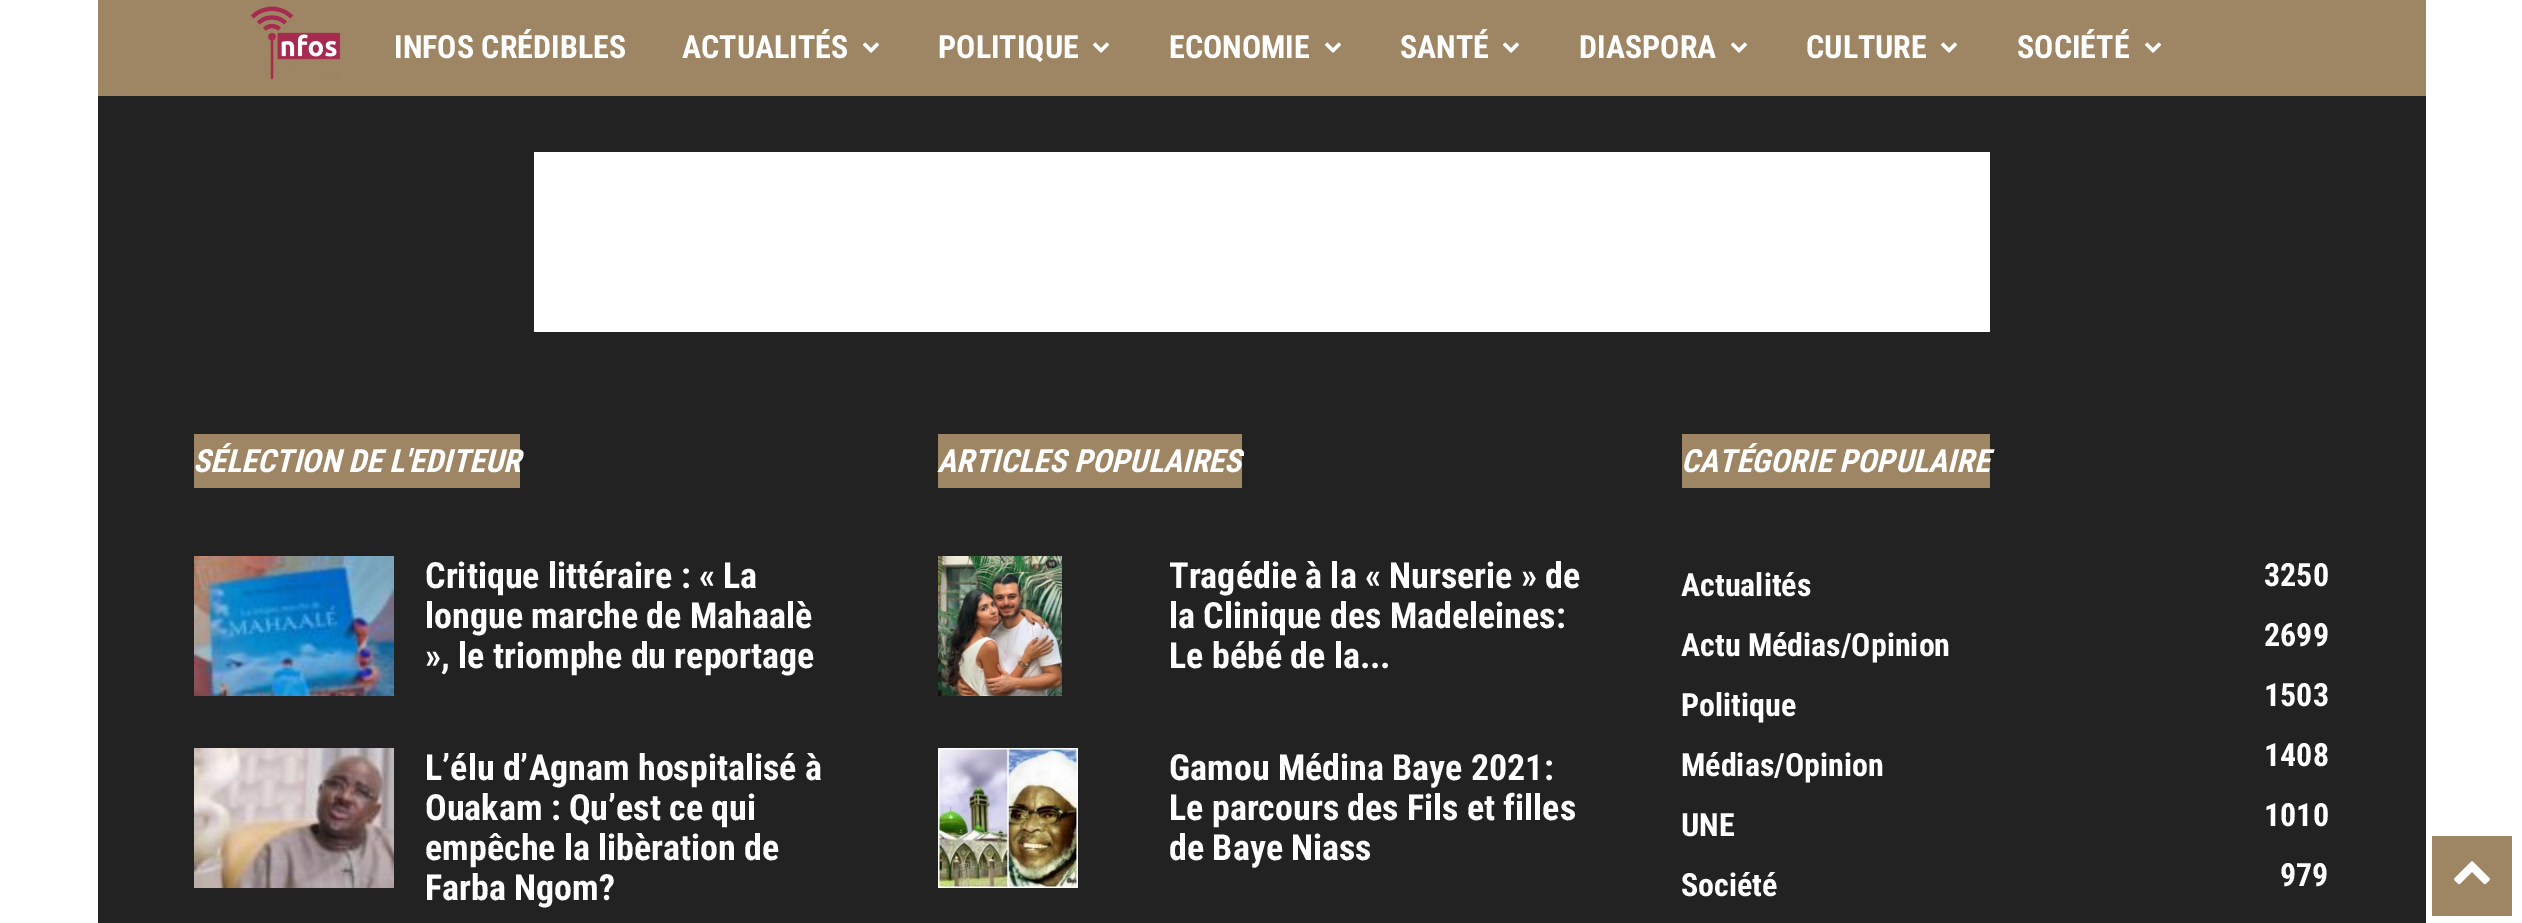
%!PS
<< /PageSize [2522 923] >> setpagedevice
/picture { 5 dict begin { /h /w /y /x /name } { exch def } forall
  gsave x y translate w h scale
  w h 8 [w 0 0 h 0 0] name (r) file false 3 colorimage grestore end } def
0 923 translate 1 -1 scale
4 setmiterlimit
1 setgray
0 0 2522 923 rectfill
0.62 0.522 0.388 setrgbcolor
98 0 2328 96 rectfill
(img1.rgb) 250 6 91 74 picture
/RobotoCondensed-Bold [32 0 0 -32 0 0] selectfont
1 setgray
394 58 moveto (INFOS CRÉDIBLES) show
682 58 moveto (ACTUALITÉS) show
(img2.rgb) 863 42 16 11 picture
938 58 moveto (POLITIQUE) show
(img2.rgb) 1093 42 16 11 picture
1169 58 moveto (ECONOMIE) show
(img2.rgb) 1325 42 16 11 picture
1400 58 moveto (SANTÉ) show
(img2.rgb) 1503 42 16 11 picture
1579 58 moveto (DIASPORA) show
(img2.rgb) 1731 42 16 11 picture
1806 58 moveto (CULTURE) show
(img2.rgb) 1941 42 16 11 picture
2017 58 moveto (SOCIÉTÉ) show
(img2.rgb) 2145 42 16 11 picture
0.133 setgray
98 96 2328 827 rectfill
1 setgray
534 152 1456 180 rectfill
0.62 0.522 0.388 setrgbcolor
194 434 326 54 rectfill
/RobotoCondensed-BoldItalic [32 0 0 -32 0 0] selectfont
1 setgray
193 472 moveto (SÉLECTION DE L'EDITEUR) show
(img3.rgb) 194 556 200 140 picture
/RobotoCondensed-Bold [36 0 0 -36 0 0] selectfont
425 588 moveto (Critique littéraire : « La) show
425 628 moveto (longue marche de Mahaalè) show
425 668 moveto (», le triomphe du reportage) show
(img4.rgb) 194 748 200 140 picture
425 780 moveto (L’élu d’Agnam hospitalisé à) show
425 820 moveto (Ouakam : Qu’est ce qui) show
425 860 moveto (empêche la libèration de) show
425 900 moveto (Farba Ngom?) show
0.62 0.522 0.388 setrgbcolor
938 434 304 54 rectfill
/RobotoCondensed-BoldItalic [32 0 0 -32 0 0] selectfont
1 setgray
937 472 moveto (ARTICLES POPULAIRES) show
(img5.rgb) 938 556 124 140 picture
/RobotoCondensed-Bold [36 0 0 -36 0 0] selectfont
1169 588 moveto (Tragédie à la « Nurserie » de) show
1169 628 moveto (la Clinique des Madeleines:) show
1169 668 moveto (Le bébé de la...) show
(img6.rgb) 938 748 140 140 picture
1169 780 moveto (Gamou Médina Baye 2021:) show
1169 820 moveto (Le parcours des Fils et filles) show
1169 860 moveto (de Baye Niass) show
0.62 0.522 0.388 setrgbcolor
1682 434 308 54 rectfill
/RobotoCondensed-BoldItalic [32 0 0 -32 0 0] selectfont
1 setgray
1681 472 moveto (CATÉGORIE POPULAIRE) show
/RobotoCondensed-Bold [32 0 0 -32 0 0] selectfont
1681 596 moveto (Actualités) show
2264 586 moveto (3250) show
1681 656 moveto (Actu Médias/Opinion) show
2264 646 moveto (2699) show
1681 716 moveto (Politique) show
2264 706 moveto (1503) show
1681 776 moveto (Médias/Opinion) show
2264 766 moveto (1408) show
1681 836 moveto (UNE) show
2264 826 moveto (1010) show
1681 896 moveto (Société) show
2280 886 moveto (979) show
0.62 0.522 0.388 setrgbcolor
2432 836 80 80 rectfill
(img7.rgb) 2454 861 36 24 picture
showpage
